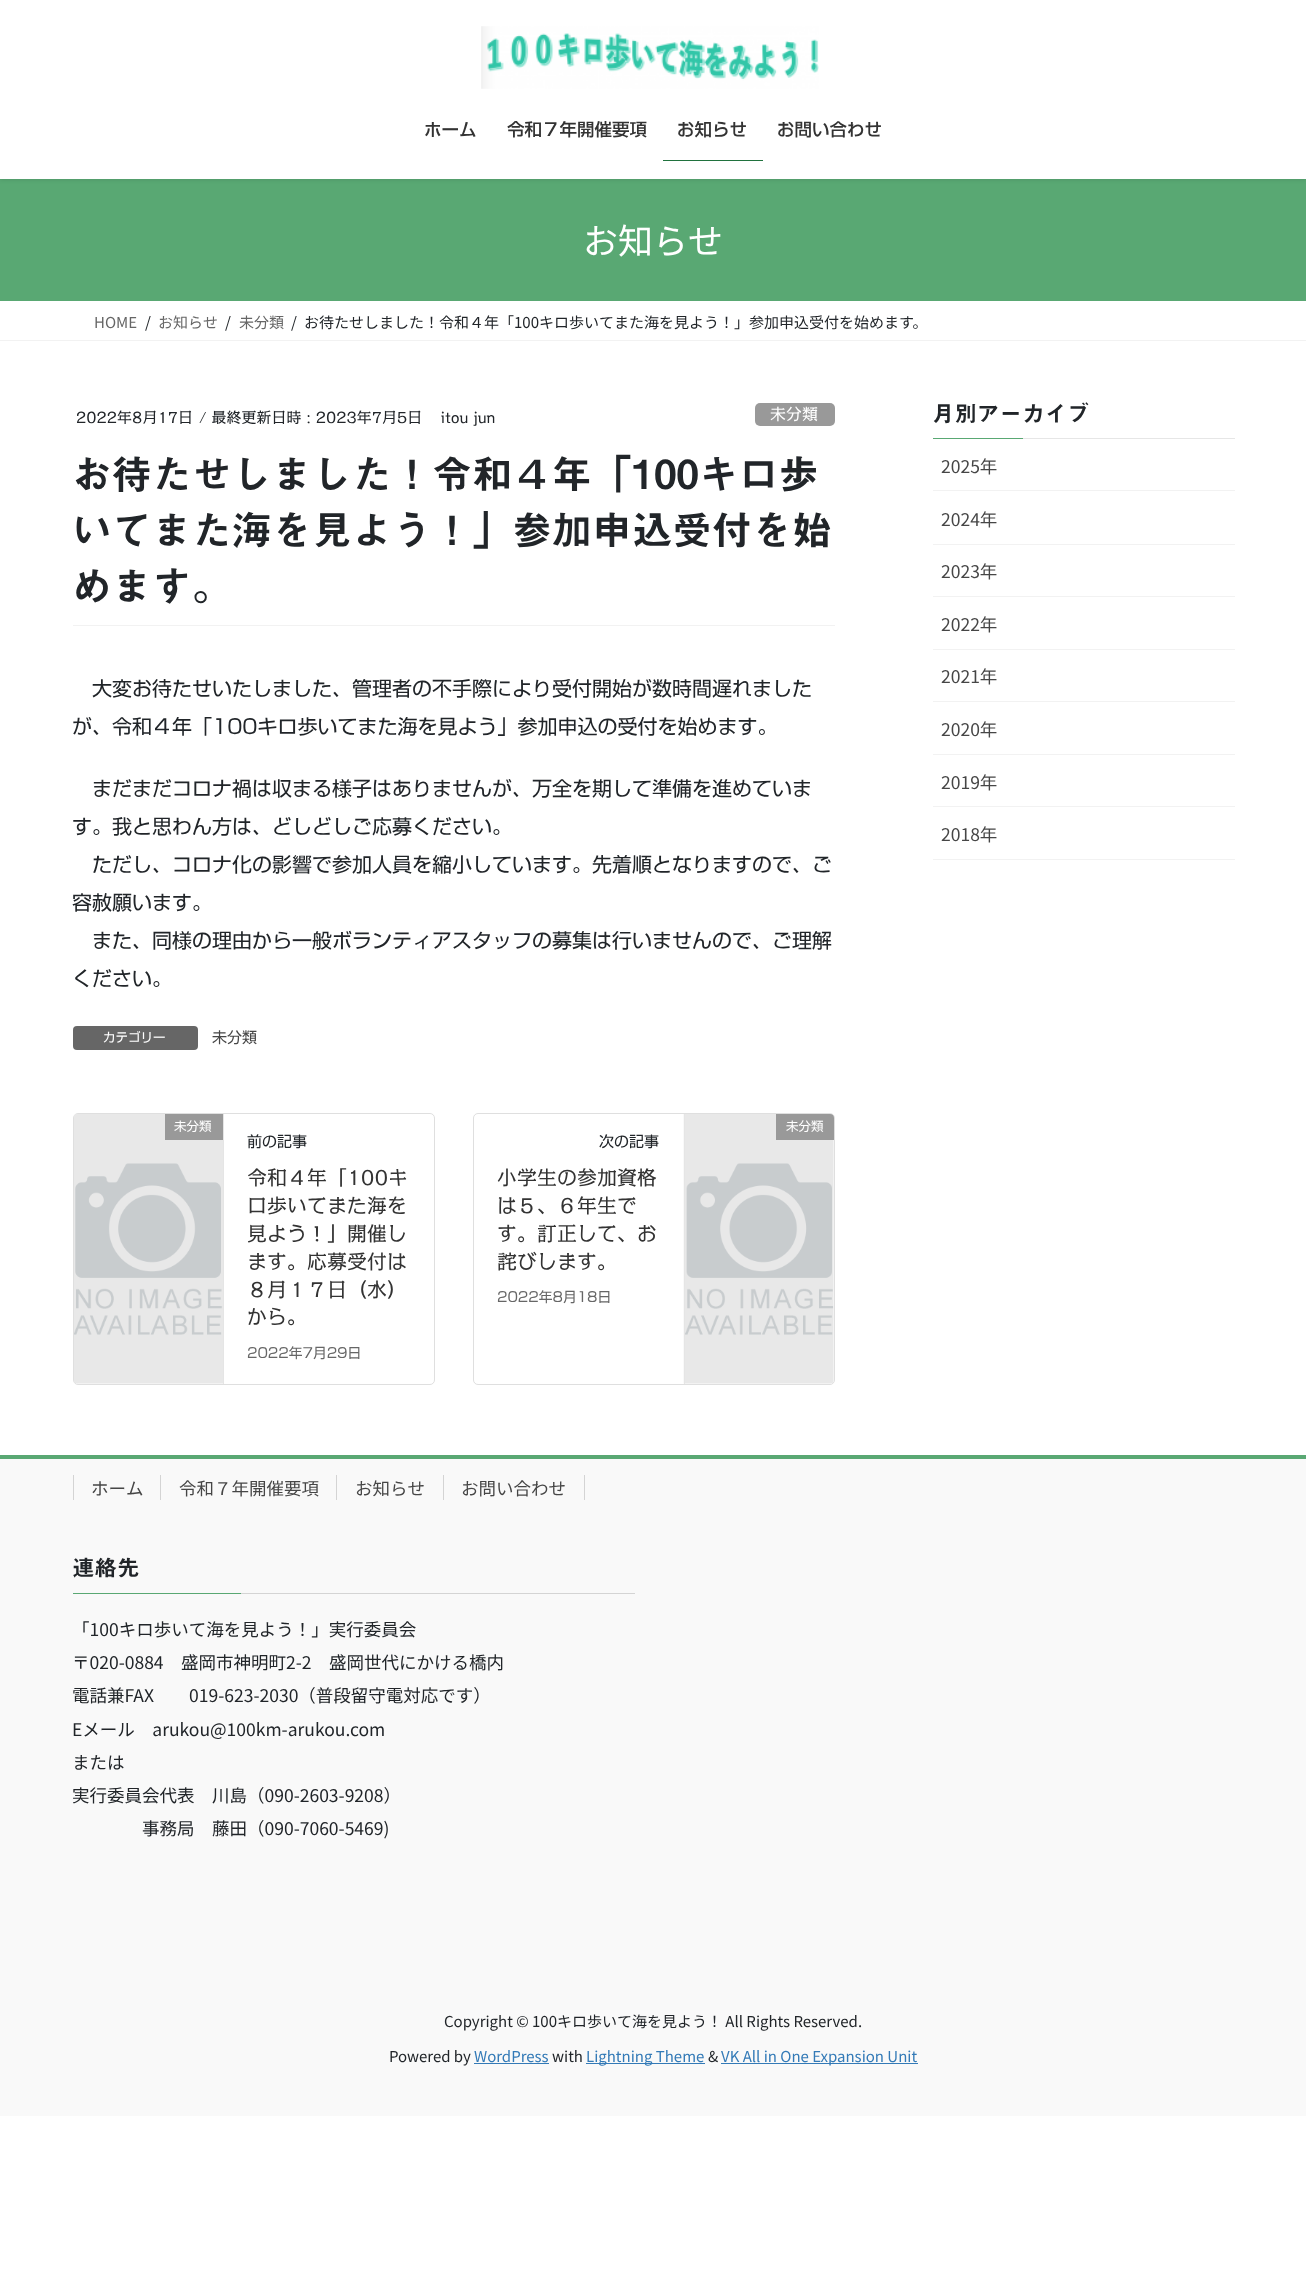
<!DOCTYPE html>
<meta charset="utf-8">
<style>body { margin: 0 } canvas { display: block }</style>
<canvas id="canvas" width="1306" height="2272"></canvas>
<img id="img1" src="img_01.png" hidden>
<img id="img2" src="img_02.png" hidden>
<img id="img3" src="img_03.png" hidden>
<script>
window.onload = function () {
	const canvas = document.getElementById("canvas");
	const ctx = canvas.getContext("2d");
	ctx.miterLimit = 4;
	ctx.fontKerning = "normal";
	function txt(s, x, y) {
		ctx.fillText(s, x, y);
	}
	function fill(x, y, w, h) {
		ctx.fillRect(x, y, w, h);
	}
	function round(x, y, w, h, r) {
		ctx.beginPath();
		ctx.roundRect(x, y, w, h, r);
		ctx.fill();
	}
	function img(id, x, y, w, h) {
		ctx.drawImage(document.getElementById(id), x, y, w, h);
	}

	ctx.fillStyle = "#FFFFFF";
	fill(0, 0, 1306, 2272);
	ctx.fillStyle = "#59A873";
	fill(0, 179, 1306, 122);
	ctx.fillStyle = "rgba(0, 0, 0, 0.1)";
	ctx.filter = "blur(2px)";
	ctx.beginPath();
	ctx.rect(0, 1, 1306, 179);
	ctx.fill();
	ctx.filter = "none";
	ctx.fillStyle = "#FFFFFF";
	fill(0, 0, 1306, 179);
	img("img1", 481, 26, 338, 63);
	ctx.fillStyle = "#20723E";
	fill(663, 160, 100, 1);
	ctx.fillStyle = "#F2F2F2";
	fill(0, 340, 1306, 1);
	fill(73, 625, 762, 1);
	ctx.fillStyle = "#999999";
	round(755, 403, 80, 23, 5);
	ctx.fillStyle = "#666666";
	round(73, 1026, 125, 24, 4);
	ctx.beginPath();
	ctx.roundRect(73.5, 1113.5, 361, 271, 4.5);
	ctx.strokeStyle = "#DFDFDF";
	ctx.stroke();
	img("img2", 74, 1114, 149, 270);
	ctx.fillStyle = "#E5E5E5";
	fill(223, 1114, 1, 270);
	ctx.fillStyle = "#999999";
	fill(165, 1114, 58, 26);
	ctx.beginPath();
	ctx.roundRect(473.5, 1113.5, 361, 271, 4.5);
	ctx.stroke();
	img("img3", 683, 1114, 151, 270);
	ctx.fillStyle = "#E5E5E5";
	fill(684, 1114, 1, 270);
	ctx.fillStyle = "#999999";
	ctx.beginPath();
	ctx.roundRect(776, 1114, 58, 26, [0, 4, 0, 0]);
	ctx.fill();
	ctx.fillStyle = "#E6E6E6";
	fill(1023, 438, 212, 1);
	ctx.fillStyle = "#59A873";
	fill(933, 438, 90, 1);
	ctx.fillStyle = "#F2F2F2";
	fill(933, 490, 302, 1);
	fill(933, 544, 302, 1);
	fill(933, 596, 302, 1);
	fill(933, 649, 302, 1);
	fill(933, 701, 302, 1);
	fill(933, 754, 302, 1);
	fill(933, 806, 302, 1);
	fill(933, 859, 302, 1);
	ctx.fillStyle = "#F9F9F9";
	fill(0, 1459, 1306, 657);
	ctx.fillStyle = "#59A873";
	fill(0, 1455, 1306, 4);
	ctx.fillStyle = "#D4D4D4";
	fill(73, 1475, 1, 25);
	fill(160, 1475, 1, 25);
	fill(336, 1475, 1, 25);
	fill(584, 1475, 1, 25);
	fill(443, 1475, 1, 25);
	fill(241, 1593, 394, 1);
	ctx.fillStyle = "#59A873";
	fill(73, 1593, 168, 1);
	ctx.fillStyle = "#337AB7";
	fill(474, 2063, 75, 1);
	fill(586, 2063, 119, 1);
	fill(721, 2063, 197, 1);
	ctx.font = "500 17.5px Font";
	ctx.fillStyle = "#333333";
	txt("ホーム", 424, 136);
	txt("令和７年開催要項", 507, 136);
	txt("お知らせ", 677, 136);
	txt("お問い合わせ", 777, 136);
	ctx.font = "35px Noto Sans JP";
	ctx.fillStyle = "#FFFFFF";
	txt("お知らせ", 583, 254);
	ctx.font = "15px Noto Sans JP";
	ctx.fillStyle = "#666666";
	txt("HOME", 94, 328);
	ctx.fillStyle = "#212529";
	txt("/", 145, 328);
	ctx.fillStyle = "#666666";
	txt("お知らせ", 158, 328);
	ctx.fillStyle = "#212529";
	txt("/", 225, 328);
	ctx.fillStyle = "#666666";
	txt("未分類", 239, 328);
	ctx.fillStyle = "#212529";
	txt("/", 291, 328);
	txt("お待たせしました！令和４年「100キロ歩いてまた海を見よう！」参加申込受付を始めます。", 304, 328);
	ctx.font = "15px 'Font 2'";
	txt("2022年8月17日", 76, 423);
	txt("/ 最終更新日時 : 2023年7月5日", 199, 423);
	txt("itou jun", 441, 423);
	ctx.font = "16px 'Font 2'";
	ctx.fillStyle = "#FFFFFF";
	txt("未分類", 770, 420);
	ctx.font = "600 40px Font";
	ctx.fillStyle = "#212529";
	txt("お待たせしました！令和４年「100キロ歩", 72, 489);
	txt("いてまた海を見よう！」参加申込受付を始", 72, 545);
	txt("めます。", 72, 601);
	ctx.font = "20px Font";
	txt("大変お待たせいたしました、管理者の不手際により受付開始が数時間遅れました", 92, 696);
	txt("が、令和４年「100キロ歩いてまた海を見よう」参加申込の受付を始めます。", 72, 734);
	txt("まだまだコロナ禍は収まる様子はありませんが、万全を期して準備を進めていま", 92, 796);
	txt("す。我と思わん方は、どしどしご応募ください。", 72, 834);
	txt("ただし、コロナ化の影響で参加人員を縮小しています。先着順となりますので、ご", 92, 872);
	txt("容赦願います。", 72, 910);
	txt("また、同様の理由から一般ボランティアスタッフの募集は行いませんので、ご理解", 92, 948);
	txt("ください。", 72, 986);
	ctx.font = "12.5px Font";
	ctx.fillStyle = "#FFFFFF";
	txt("カテゴリー", 103, 1042);
	ctx.font = "15px Font";
	ctx.fillStyle = "#464646";
	txt("未分類", 212, 1043);
	ctx.font = "12.5px Font";
	ctx.fillStyle = "#FFFFFF";
	txt("未分類", 174, 1131);
	ctx.font = "15px Font";
	ctx.fillStyle = "#212529";
	txt("前の記事", 247, 1147);
	ctx.font = "20px 'Font 2'";
	ctx.fillStyle = "#333333";
	txt("令和４年「100キ", 247, 1185);
	txt("ロ歩いてまた海を", 247, 1213);
	txt("見よう！」開催し", 247, 1241);
	txt("ます。応募受付は", 247, 1269);
	txt("８月１７日（水）", 247, 1297);
	txt("から。", 247, 1324);
	ctx.font = "13.75px Font";
	ctx.fillStyle = "#666666";
	txt("2022年7月29日", 247, 1358);
	ctx.font = "12.5px Font";
	ctx.fillStyle = "#FFFFFF";
	txt("未分類", 786, 1131);
	ctx.font = "15px Font";
	ctx.fillStyle = "#212529";
	txt("次の記事", 599, 1147);
	ctx.font = "20px 'Font 2'";
	ctx.fillStyle = "#333333";
	txt("小学生の参加資格", 497, 1185);
	txt("は５、６年生で", 497, 1213);
	txt("す。訂正して、お", 497, 1241);
	txt("詫びします。", 497, 1269);
	ctx.font = "13.75px Font";
	ctx.fillStyle = "#666666";
	txt("2022年8月18日", 497, 1302);
	ctx.font = "600 22.5px Font";
	ctx.fillStyle = "#212529";
	txt("月別アーカイブ", 932, 422);
	ctx.font = "17.5px Noto Sans JP";
	ctx.fillStyle = "#464646";
	txt("2025年", 941, 473);
	txt("2024年", 941, 526);
	txt("2023年", 941, 578);
	txt("2022年", 941, 631);
	txt("2021年", 941, 683);
	txt("2020年", 941, 736);
	txt("2019年", 941, 789);
	txt("2018年", 941, 841);
	txt("ホーム", 91, 1495);
	txt("令和７年開催要項", 179, 1495);
	txt("お知らせ", 355, 1495);
	txt("お問い合わせ", 461, 1495);
	ctx.font = "600 22.5px Font";
	ctx.fillStyle = "#212529";
	txt("連絡先", 72, 1576);
	ctx.font = "17.5px Noto Sans JP";
	txt("「100キロ歩いて海を見よう！」実行委員会", 72, 1636);
	txt("〒020-0884　盛岡市神明町2-2　盛岡世代にかける橋内", 72, 1669);
	txt("電話兼FAX　　019-623-2030（普段留守電対応です）", 72, 1702);
	txt("Eメール　arukou@100km-arukou.com", 72, 1736);
	txt("または", 72, 1769);
	txt("実行委員会代表　川島（090-2603-9208）", 72, 1802);
	txt("事務局　藤田（090-7060-5469)", 142, 1835);
	ctx.font = "15px Noto Sans JP";
	txt("Copyright © 100キロ歩いて海を見よう！ All Rights Reserved.", 444, 2027);
	txt("Powered by", 389, 2062);
	ctx.fillStyle = "#337AB7";
	txt("WordPress", 474, 2062);
	ctx.fillStyle = "#212529";
	txt("with", 552, 2062);
	ctx.fillStyle = "#337AB7";
	txt("Lightning Theme", 586, 2062);
	ctx.fillStyle = "#212529";
	txt("&", 708, 2062);
	ctx.fillStyle = "#337AB7";
	txt("VK All in One Expansion Unit", 721, 2062);
};
</script>
